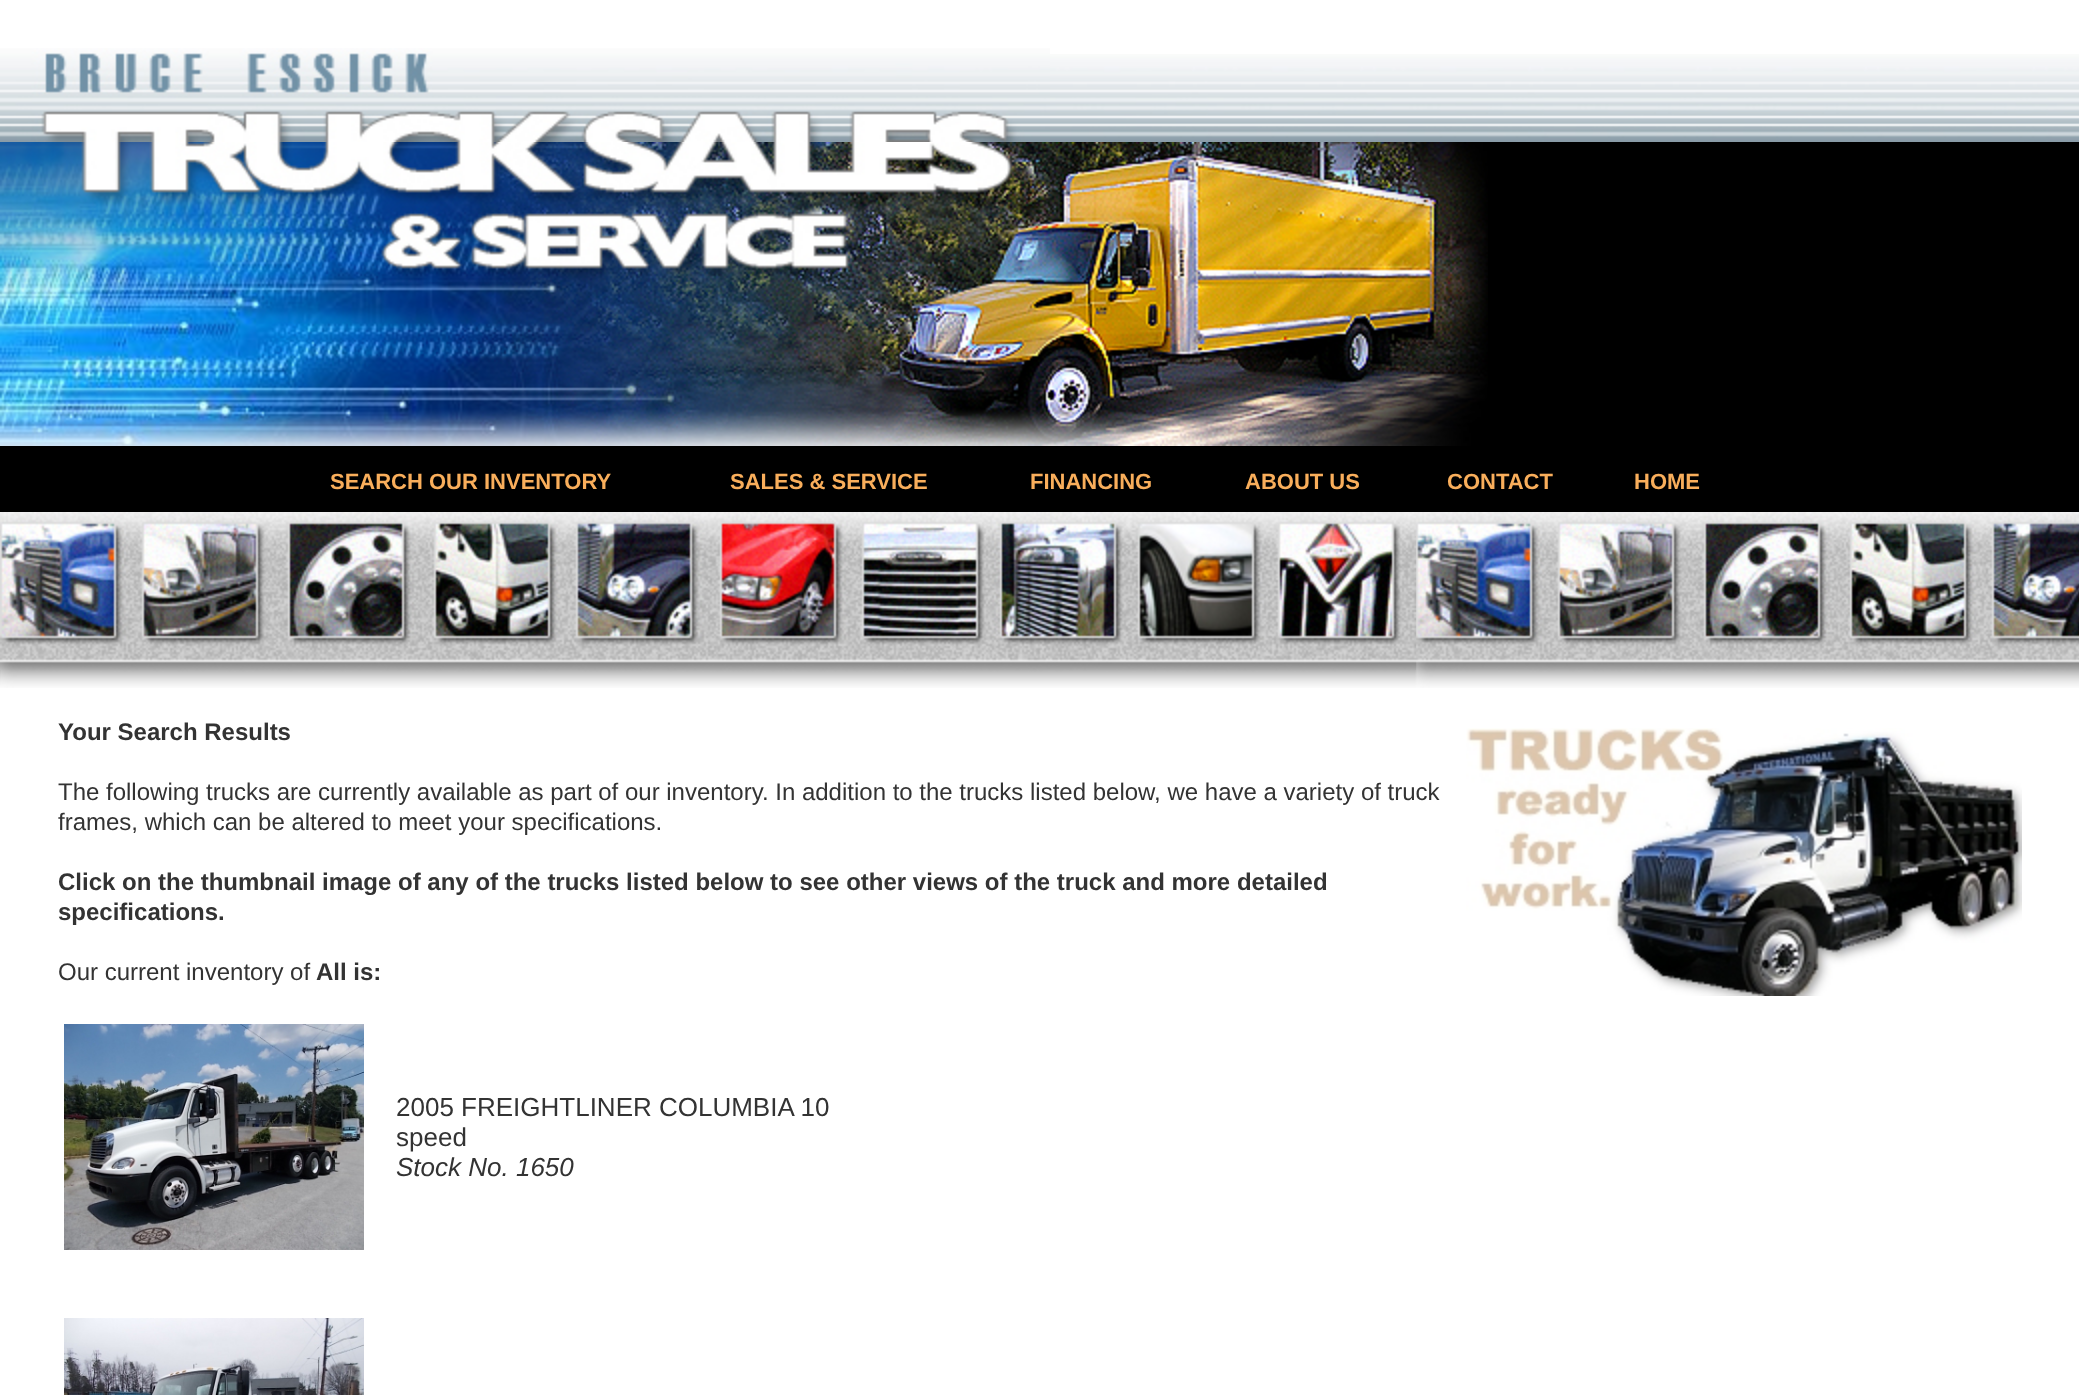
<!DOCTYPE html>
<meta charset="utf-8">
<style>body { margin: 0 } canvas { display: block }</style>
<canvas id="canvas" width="2079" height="1395"></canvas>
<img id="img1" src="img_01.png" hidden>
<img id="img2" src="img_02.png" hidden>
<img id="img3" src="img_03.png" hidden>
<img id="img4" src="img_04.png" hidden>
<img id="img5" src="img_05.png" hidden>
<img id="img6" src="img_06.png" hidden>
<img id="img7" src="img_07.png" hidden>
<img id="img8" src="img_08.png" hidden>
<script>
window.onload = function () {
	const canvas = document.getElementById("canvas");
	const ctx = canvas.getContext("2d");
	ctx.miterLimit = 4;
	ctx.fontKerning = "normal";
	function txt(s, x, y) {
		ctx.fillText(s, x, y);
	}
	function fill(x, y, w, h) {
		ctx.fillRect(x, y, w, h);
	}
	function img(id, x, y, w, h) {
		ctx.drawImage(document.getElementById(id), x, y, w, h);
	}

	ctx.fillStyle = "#FFFFFF";
	fill(0, 0, 2079, 1395);
	img("img1", 1050, 54, 1029, 88);
	img("img2", 0, 48, 1050, 94);
	ctx.fillStyle = "#000000";
	fill(1488, 142, 591, 304);
	img("img3", 0, 142, 1488, 304);
	fill(0, 446, 2079, 66);
	img("img4", 0, 512, 2079, 176);
	img("img5", 0, 536, 1416, 134);
	img("img6", 64, 1024, 300, 226);
	img("img7", 64, 1318, 300, 77);
	img("img8", 1466, 728, 556, 268);
	ctx.font = "bold 22px Liberation Sans";
	ctx.fillStyle = "#F9AE5B";
	txt("SEARCH OUR INVENTORY", 330, 489);
	txt("SALES & SERVICE", 730, 489);
	txt("FINANCING", 1030, 489);
	txt("ABOUT US", 1245, 489);
	txt("CONTACT", 1447, 489);
	txt("HOME", 1634, 489);
	ctx.font = "bold 24px Liberation Sans";
	ctx.fillStyle = "#333333";
	txt("Your Search Results", 58, 740);
	ctx.font = "24px Liberation Sans";
	txt("The following trucks are currently available as part of our inventory. In addition to the trucks listed below, we have a variety of truck", 58, 800);
	txt("frames, which can be altered to meet your specifications.", 58, 830);
	ctx.font = "bold 24px Liberation Sans";
	txt("Click on the thumbnail image of any of the trucks listed below to see other views of the truck and more detailed", 58, 890);
	txt("specifications.", 58, 920);
	ctx.font = "24px Liberation Sans";
	txt("Our current inventory of", 58, 980);
	ctx.font = "bold 24px Liberation Sans";
	txt("All is:", 316, 980);
	ctx.font = "26px Liberation Sans";
	txt("2005 FREIGHTLINER COLUMBIA 10", 396, 1116);
	txt("speed", 396, 1146);
	ctx.font = "italic 26px Liberation Sans";
	txt("Stock No. 1650", 396, 1176);
};
</script>
